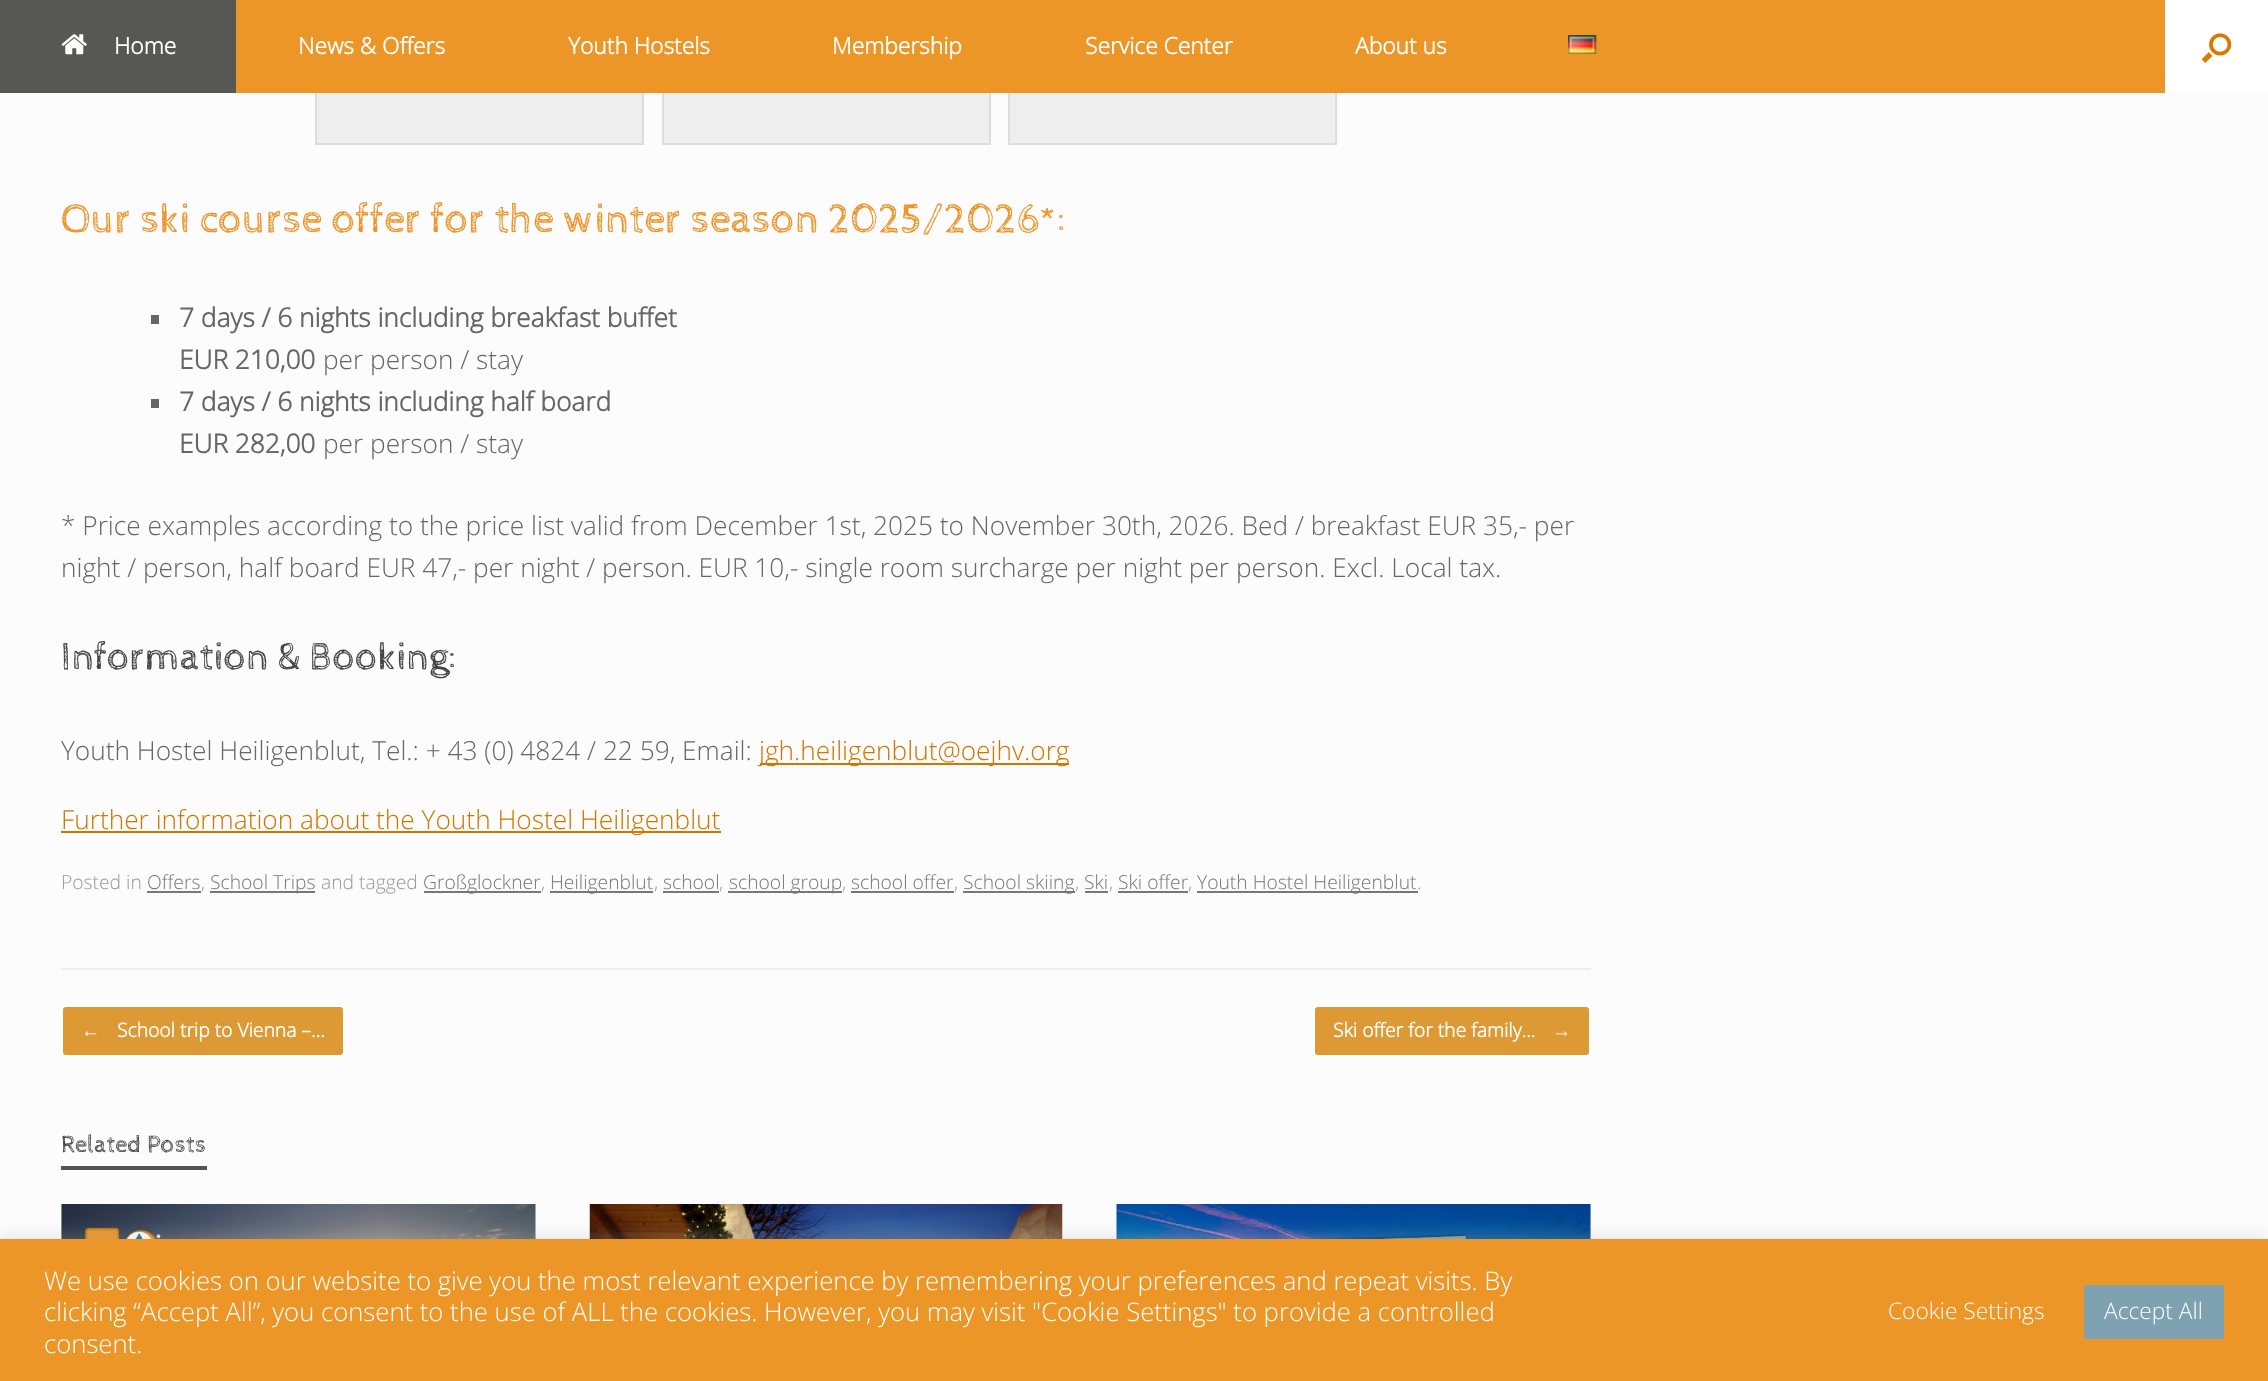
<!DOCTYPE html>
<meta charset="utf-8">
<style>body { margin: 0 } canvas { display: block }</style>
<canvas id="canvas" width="2268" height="1381"></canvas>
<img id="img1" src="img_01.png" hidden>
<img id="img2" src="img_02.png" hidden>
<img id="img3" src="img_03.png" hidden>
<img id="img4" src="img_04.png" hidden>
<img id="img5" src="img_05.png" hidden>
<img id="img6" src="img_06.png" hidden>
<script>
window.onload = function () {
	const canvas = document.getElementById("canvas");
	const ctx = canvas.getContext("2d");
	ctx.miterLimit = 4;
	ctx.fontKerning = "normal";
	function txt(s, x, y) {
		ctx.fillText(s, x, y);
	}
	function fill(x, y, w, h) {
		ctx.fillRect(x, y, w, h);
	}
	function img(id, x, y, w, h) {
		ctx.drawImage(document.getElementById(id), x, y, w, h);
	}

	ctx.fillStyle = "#FCFCFC";
	fill(0, 0, 2268, 1381);
	ctx.fillStyle = "#EEEEEE";
	fill(317, 93, 325, 50);
	ctx.strokeStyle = "#DDDDDD";
	ctx.lineWidth = 2;
	ctx.strokeRect(316, -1, 327, 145);
	fill(664, 93, 325, 50);
	ctx.strokeRect(663, -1, 327, 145);
	fill(1010, 93, 325, 50);
	ctx.strokeRect(1009, -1, 327, 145);
	ctx.fillStyle = "#EC9628";
	fill(236, 0, 1929, 93);
	ctx.fillStyle = "#575756";
	fill(0, 0, 236, 93);
	img("img1", 61, 34, 26, 21);
	img("img2", 1568, 35, 29, 19);
	ctx.fillStyle = "#FFFFFF";
	fill(2165, 0, 103, 93);
	img("img3", 2201, 33, 31, 30);
	ctx.fillStyle = "#EEEEEE";
	fill(61, 968, 1530, 2);
	ctx.fillStyle = "#666666";
	fill(151, 315, 8, 9);
	fill(151, 399, 8, 9);
	ctx.fillStyle = "#D17600";
	fill(760, 763, 309, 2);
	fill(61, 831, 660, 2);
	ctx.fillStyle = "#777777";
	fill(147, 891, 54, 2);
	fill(210, 891, 105, 2);
	fill(424, 891, 117, 2);
	fill(550, 891, 103, 2);
	fill(663, 891, 56, 2);
	fill(728, 891, 114, 2);
	fill(851, 891, 103, 2);
	fill(963, 891, 112, 2);
	fill(1085, 891, 23, 2);
	fill(1118, 891, 70, 2);
	fill(1197, 891, 221, 2);
	ctx.fillStyle = "#DD9933";
	ctx.beginPath();
	ctx.roundRect(62, 1006, 282, 50, 4);
	ctx.fill();
	ctx.strokeStyle = "#FFFFFF";
	ctx.stroke();
	ctx.beginPath();
	ctx.roundRect(1314, 1006, 276, 50, 4);
	ctx.fill();
	ctx.stroke();
	ctx.fillStyle = "#555555";
	fill(61, 1166, 146, 4);
	img("img4", 61, 1204, 475, 35);
	img("img5", 589, 1204, 474, 35);
	img("img6", 1116, 1204, 475, 35);
	ctx.fillStyle = "rgba(172, 171, 171, 0.3)";
	ctx.filter = "blur(9px)";
	ctx.beginPath();
	ctx.rect(0, 1237, 2268, 144);
	ctx.fill();
	ctx.filter = "none";
	ctx.fillStyle = "#EC9628";
	fill(0, 1239, 2268, 142);
	ctx.fillStyle = "#7FA2B3";
	fill(2084, 1285, 140, 54);
	ctx.font = "bold 22.75px Open Sans";
	ctx.fillStyle = "#FFFFFF";
	txt("Home", 114, 54);
	txt("News & Offers", 298, 54);
	txt("Youth Hostels", 568, 54);
	txt("Membership", 832, 54);
	txt("Service Center", 1085, 54);
	txt("About us", 1355, 54);
	ctx.font = "42px Cabin Sketch";
	ctx.fillStyle = "#ED942A";
	txt("Our ski course offer for the winter season 2025/2026*:", 61, 232);
	ctx.font = "bold 26.25px Open Sans";
	ctx.fillStyle = "#666666";
	txt("7 days / 6 nights including breakfast buffet", 179, 327);
	txt("EUR 210,00", 179, 369);
	ctx.font = "300 26.25px Open Sans";
	txt("per person / stay", 323, 369);
	ctx.font = "bold 26.25px Open Sans";
	txt("7 days / 6 nights including half board", 179, 411);
	txt("EUR 282,00", 179, 453);
	ctx.font = "300 26.25px Open Sans";
	txt("per person / stay", 323, 453);
	txt("* Price examples according to the price list valid from December 1st, 2025 to November 30th, 2026. Bed / breakfast EUR 35,- per", 61, 535);
	txt("night / person, half board EUR 47,- per night / person. EUR 10,- single room surcharge per night per person. Excl. Local tax.", 61, 577);
	ctx.font = "39.4px Cabin Sketch";
	ctx.fillStyle = "#444444";
	txt("Information & Booking:", 61, 669);
	ctx.font = "300 26.25px Open Sans";
	ctx.fillStyle = "#666666";
	txt("Youth Hostel Heiligenblut, Tel.: + 43 (0) 4824 / 22 59, Email:", 61, 760);
	ctx.fillStyle = "#D17600";
	txt("jgh.heiligenblut@oejhv.org", 759, 760);
	txt("Further information about the Youth Hostel Heiligenblut", 61, 829);
	ctx.font = "300 19.3px Open Sans";
	ctx.fillStyle = "#999999";
	txt("Posted in", 61, 889);
	ctx.fillStyle = "#777777";
	txt("Offers", 147, 889);
	ctx.fillStyle = "#999999";
	txt(",", 201, 889);
	ctx.fillStyle = "#777777";
	txt("School Trips", 210, 889);
	ctx.fillStyle = "#999999";
	txt("and tagged", 321, 889);
	ctx.fillStyle = "#777777";
	txt("Großglockner", 423, 889);
	ctx.fillStyle = "#999999";
	txt(",", 541, 889);
	ctx.fillStyle = "#777777";
	txt("Heiligenblut", 550, 889);
	ctx.fillStyle = "#999999";
	txt(",", 654, 889);
	ctx.fillStyle = "#777777";
	txt("school", 663, 889);
	ctx.fillStyle = "#999999";
	txt(",", 719, 889);
	ctx.fillStyle = "#777777";
	txt("school group", 729, 889);
	ctx.fillStyle = "#999999";
	txt(",", 842, 889);
	ctx.fillStyle = "#777777";
	txt("school offer", 851, 889);
	ctx.fillStyle = "#999999";
	txt(",", 954, 889);
	ctx.fillStyle = "#777777";
	txt("School skiing", 963, 889);
	ctx.fillStyle = "#999999";
	txt(",", 1075, 889);
	ctx.fillStyle = "#777777";
	txt("Ski", 1084, 889);
	ctx.fillStyle = "#999999";
	txt(",", 1109, 889);
	ctx.fillStyle = "#777777";
	txt("Ski offer", 1118, 889);
	ctx.fillStyle = "#999999";
	txt(",", 1188, 889);
	ctx.fillStyle = "#777777";
	txt("Youth Hostel Heiligenblut", 1197, 889);
	ctx.fillStyle = "#999999";
	txt(".", 1417, 889);
	ctx.font = "bold 19.25px Liberation Serif";
	ctx.fillStyle = "#FFFFFF";
	txt("←", 81, 1037);
	ctx.font = "bold 19.25px Open Sans";
	txt("School trip to Vienna –…", 117, 1037);
	txt("Ski offer for the family…", 1333, 1037);
	ctx.font = "bold 19.25px Liberation Serif";
	txt("→", 1552, 1037);
	ctx.font = "24.5px Cabin Sketch";
	ctx.fillStyle = "#444444";
	txt("Related Posts", 61, 1152);
	ctx.font = "300 25.67px Open Sans";
	ctx.fillStyle = "#FFFFFF";
	txt("We use cookies on our website to give you the most relevant experience by remembering your preferences and repeat visits. By", 44, 1290);
	txt("clicking “Accept All”, you consent to the use of ALL the cookies. However, you may visit \"Cookie Settings\" to provide a controlled", 44, 1321);
	txt("consent.", 44, 1353);
	ctx.font = "300 22.75px Open Sans";
	txt("Cookie Settings", 1888, 1319);
	txt("Accept All", 2104, 1319);
};
</script>
